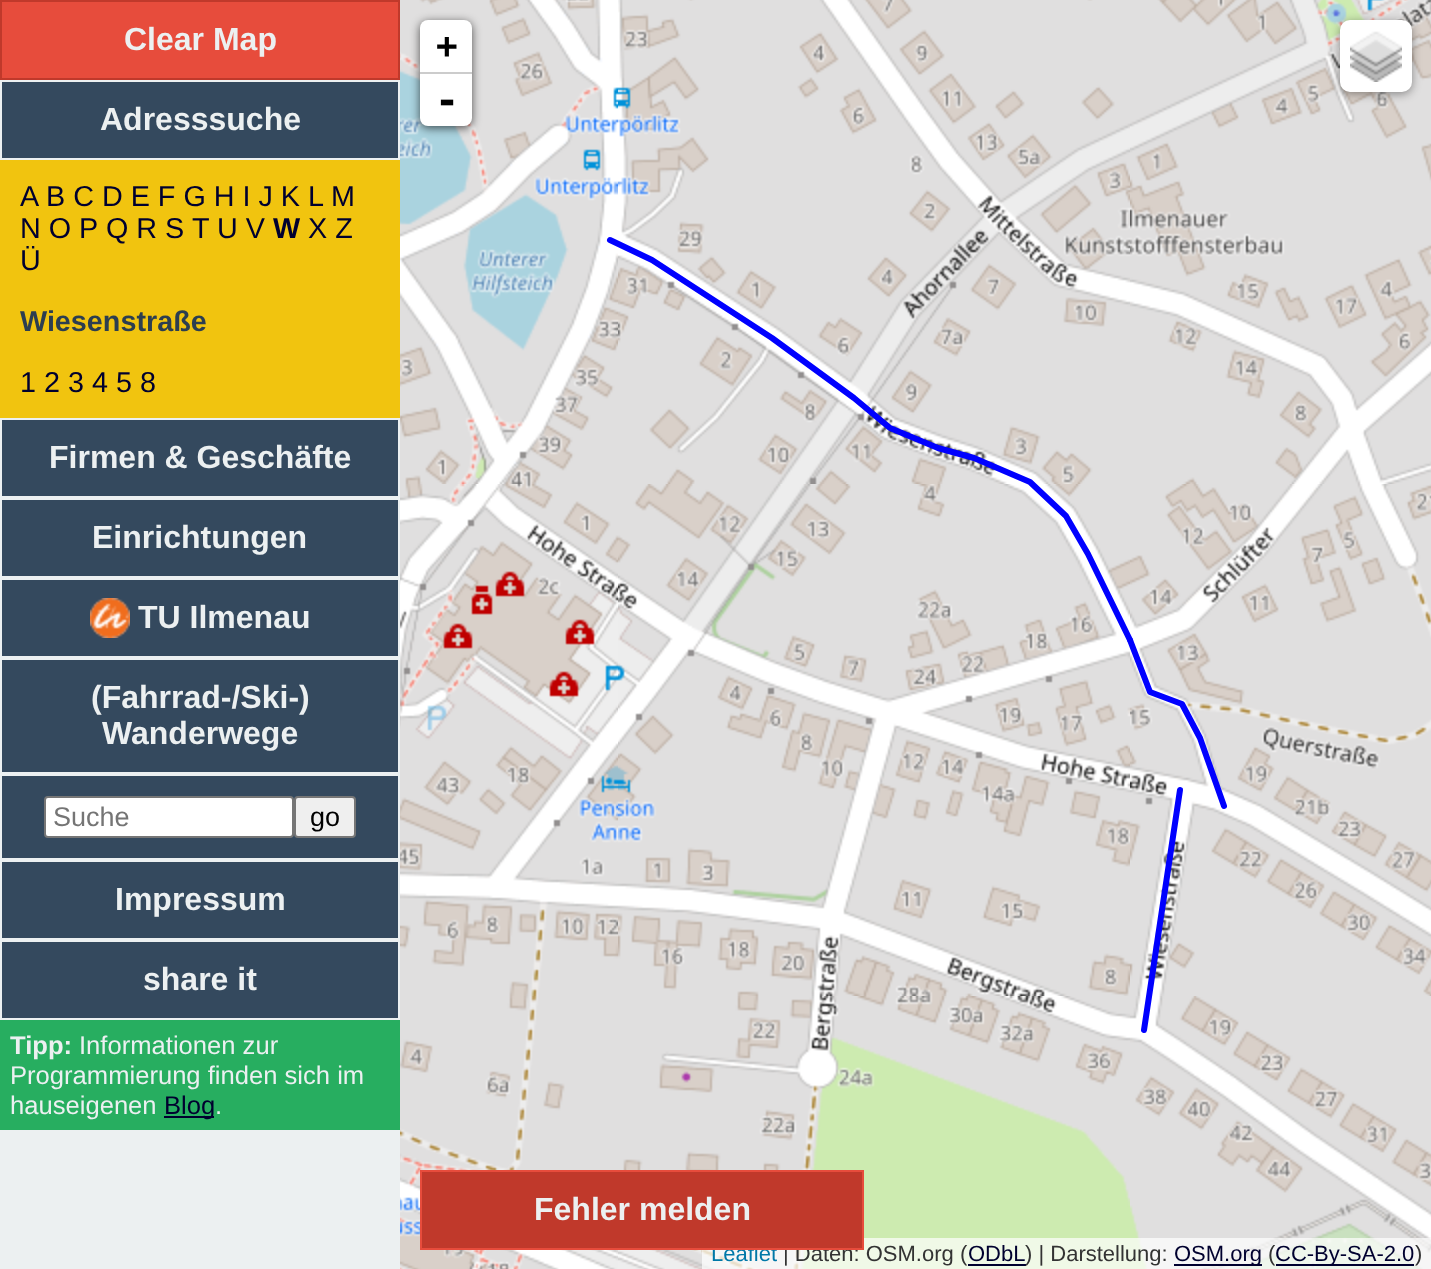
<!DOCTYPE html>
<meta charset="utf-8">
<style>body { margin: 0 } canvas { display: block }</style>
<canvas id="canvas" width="1431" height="1269"></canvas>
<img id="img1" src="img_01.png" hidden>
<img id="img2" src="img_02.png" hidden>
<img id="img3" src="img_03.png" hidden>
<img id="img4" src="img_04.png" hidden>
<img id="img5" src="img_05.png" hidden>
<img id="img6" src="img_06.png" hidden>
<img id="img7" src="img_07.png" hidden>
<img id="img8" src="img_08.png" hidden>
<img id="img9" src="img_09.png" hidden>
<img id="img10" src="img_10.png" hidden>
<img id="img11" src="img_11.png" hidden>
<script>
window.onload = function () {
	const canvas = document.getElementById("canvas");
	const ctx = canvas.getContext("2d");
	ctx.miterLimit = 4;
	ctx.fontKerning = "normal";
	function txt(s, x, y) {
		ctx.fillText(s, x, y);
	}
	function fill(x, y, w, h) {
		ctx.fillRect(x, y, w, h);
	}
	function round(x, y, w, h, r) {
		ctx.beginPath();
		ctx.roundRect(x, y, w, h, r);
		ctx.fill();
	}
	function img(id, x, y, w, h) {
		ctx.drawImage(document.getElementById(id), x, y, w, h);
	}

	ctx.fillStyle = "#ECF0F1";
	fill(0, 0, 1431, 1269);
	ctx.fillStyle = "#E74C3C";
	ctx.beginPath();
	ctx.rect(1, 1, 398, 78);
	ctx.fill();
	ctx.strokeStyle = "#C0392B";
	ctx.lineWidth = 2;
	ctx.stroke();
	ctx.fillStyle = "#34495E";
	fill(2, 82, 396, 76);
	ctx.fillStyle = "#F1C40F";
	fill(0, 160, 400, 258);
	ctx.fillStyle = "#34495E";
	fill(2, 420, 396, 76);
	fill(2, 500, 396, 76);
	fill(2, 580, 396, 76);
	img("img1", 90, 598, 40, 40);
	fill(2, 660, 396, 112);
	fill(2, 776, 396, 82);
	ctx.fillStyle = "#FFFFFF";
	ctx.beginPath();
	ctx.roundRect(45, 797, 248, 40, 3);
	ctx.fill();
	ctx.strokeStyle = "#767676";
	ctx.stroke();
	ctx.fillStyle = "#EFEFEF";
	ctx.beginPath();
	ctx.roundRect(295, 797, 60, 40, 3);
	ctx.fill();
	ctx.stroke();
	ctx.fillStyle = "#34495E";
	fill(2, 862, 396, 76);
	fill(2, 942, 396, 76);
	ctx.fillStyle = "#27AE60";
	fill(0, 1020, 400, 110);
	ctx.fillStyle = "#00002F";
	fill(164, 1116, 50, 2);
	img("img2", 400, 0, 218, 484);
	img("img3", 618, 0, 512, 484);
	img("img4", 1130, 0, 301, 484);
	img("img5", 400, 484, 218, 512);
	img("img6", 618, 484, 512, 512);
	img("img7", 1130, 484, 301, 512);
	img("img8", 400, 996, 218, 273);
	img("img9", 618, 996, 512, 273);
	img("img10", 1130, 996, 301, 273);
	ctx.beginPath();
	ctx.moveTo(1130, 640);
	ctx.lineTo(1088, 554);
	ctx.lineTo(1066, 516);
	ctx.lineTo(1030, 482);
	ctx.lineTo(974, 458);
	ctx.lineTo(938, 448);
	ctx.lineTo(890, 428);
	ctx.lineTo(854, 398);
	ctx.lineTo(772, 338);
	ctx.lineTo(652, 260);
	ctx.lineTo(610, 240);
	ctx.strokeStyle = "#0000FF";
	ctx.lineWidth = 6;
	ctx.lineCap = "round";
	ctx.lineJoin = "round";
	ctx.stroke();
	ctx.beginPath();
	ctx.moveTo(1144, 1030);
	ctx.lineTo(1180, 790);
	ctx.stroke();
	ctx.beginPath();
	ctx.moveTo(1224, 806);
	ctx.lineTo(1200, 738);
	ctx.lineTo(1182, 704);
	ctx.lineTo(1150, 692);
	ctx.lineTo(1130, 640);
	ctx.stroke();
	ctx.fillStyle = "rgba(0, 0, 0, 0.65)";
	ctx.filter = "blur(5px)";
	ctx.beginPath();
	ctx.roundRect(420, 22, 52, 106, 8);
	ctx.fill();
	ctx.filter = "none";
	ctx.fillStyle = "#FFFFFF";
	ctx.beginPath();
	ctx.roundRect(420, 20, 52, 54, [8, 8, 0, 0]);
	ctx.fill();
	ctx.fillStyle = "#CCCCCC";
	fill(420, 72, 52, 2);
	ctx.fillStyle = "#FFFFFF";
	ctx.beginPath();
	ctx.roundRect(420, 74, 52, 52, [0, 0, 8, 8]);
	ctx.fill();
	ctx.fillStyle = "rgba(0, 0, 0, 0.4)";
	ctx.filter = "blur(5px)";
	ctx.beginPath();
	ctx.roundRect(1340, 22, 72, 72, 10);
	ctx.fill();
	ctx.filter = "none";
	ctx.fillStyle = "#FFFFFF";
	round(1340, 20, 72, 72, 10);
	img("img11", 1350, 31, 52, 51);
	ctx.fillStyle = "rgba(255, 255, 255, 0.7)";
	fill(702, 1238, 729, 31);
	ctx.fillStyle = "#00002F";
	fill(968, 1264, 58, 2);
	fill(1174, 1264, 88, 2);
	fill(1276, 1264, 138, 2);
	ctx.font = "bold 32px Liberation Sans";
	ctx.fillStyle = "#ECF0F1";
	txt("Clear Map", 124, 50);
	txt("Adresssuche", 100, 130);
	ctx.font = "28.75px Liberation Sans";
	ctx.fillStyle = "#00002F";
	txt("A", 20, 206);
	txt("B C D E F G H I J K L", 46, 206);
	txt("M", 331, 206);
	txt("N O P", 20, 238);
	txt("Q R S", 106, 238);
	txt("T", 192, 238);
	txt("U V", 217, 238);
	ctx.font = "bold 28.75px Liberation Sans";
	txt("W", 273, 238);
	ctx.font = "28.75px Liberation Sans";
	txt("X Z", 308, 238);
	txt("Ü", 20, 270);
	ctx.font = "bold 28.75px Liberation Sans";
	ctx.fillStyle = "#2C3E50";
	txt("Wiesenstraße", 20, 331);
	ctx.font = "28.75px Liberation Sans";
	ctx.fillStyle = "#00002F";
	txt("1 2 3 4 5 8", 20, 392);
	ctx.font = "bold 32px Liberation Sans";
	ctx.fillStyle = "#ECF0F1";
	txt("Firmen & Geschäfte", 49, 468);
	txt("Einrichtungen", 92, 548);
	txt("TU Ilmenau", 138, 628);
	txt("(Fahrrad-/Ski-)", 91, 708);
	txt("Wanderwege", 102, 744);
	ctx.font = "27px Liberation Sans";
	ctx.fillStyle = "#757575";
	txt("Suche", 53, 826);
	ctx.fillStyle = "#000000";
	txt("go", 310, 826);
	ctx.font = "bold 32px Liberation Sans";
	ctx.fillStyle = "#ECF0F1";
	txt("Impressum", 115, 910);
	txt("share it", 143, 990);
	ctx.font = "bold 25.6px Liberation Sans";
	txt("Tipp:", 10, 1054);
	ctx.font = "25.6px Liberation Sans";
	txt("Informationen zur", 79, 1054);
	txt("Programmierung finden sich im", 10, 1084);
	txt("hauseigenen", 10, 1114);
	ctx.fillStyle = "#00002F";
	txt("Blog", 164, 1114);
	ctx.fillStyle = "#ECF0F1";
	txt(".", 215, 1114);
	ctx.font = "bold 36px DejaVu Sans Mono";
	ctx.fillStyle = "#000000";
	txt("+", 436, 58);
	ctx.font = "bold 40px DejaVu Sans Mono";
	txt("-", 435, 114);
	ctx.font = "22px Liberation Sans";
	ctx.fillStyle = "#0078A8";
	txt("Leaflet", 711, 1261);
	ctx.fillStyle = "#333333";
	txt("| Daten: OSM.org (", 783, 1261);
	ctx.fillStyle = "#00002F";
	txt("ODbL", 968, 1261);
	ctx.fillStyle = "#333333";
	txt(") | Darstellung:", 1025, 1261);
	ctx.fillStyle = "#00002F";
	txt("OSM.org", 1174, 1261);
	ctx.fillStyle = "#333333";
	txt("(", 1268, 1261);
	ctx.fillStyle = "#00002F";
	txt("CC-By-SA-2.0", 1275, 1261);
	ctx.fillStyle = "#333333";
	txt(")", 1415, 1261);
	ctx.fillStyle = "#C0392B";
	ctx.beginPath();
	ctx.rect(421, 1171, 442, 78);
	ctx.fill();
	ctx.strokeStyle = "#E74C3C";
	ctx.lineWidth = 2;
	ctx.lineJoin = "miter";
	ctx.stroke();
	ctx.font = "bold 32px Liberation Sans";
	ctx.fillStyle = "#ECF0F1";
	txt("Fehler melden", 534, 1220);
};
</script>
